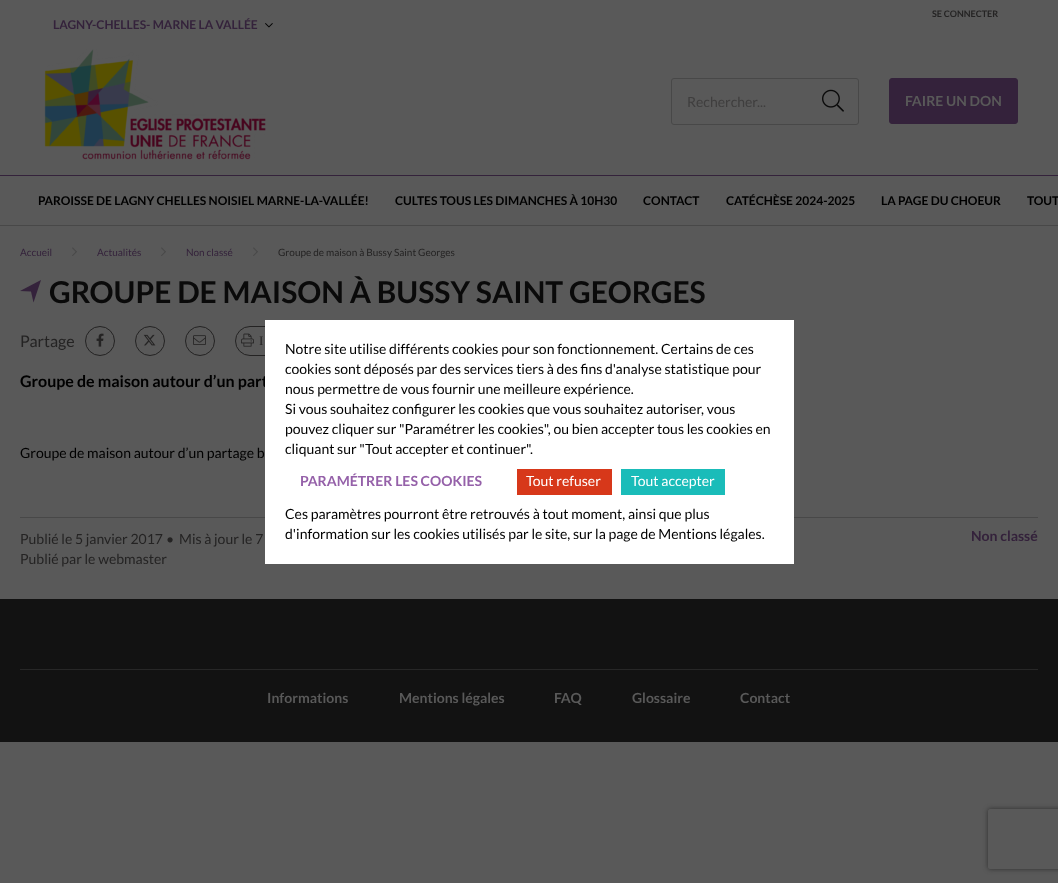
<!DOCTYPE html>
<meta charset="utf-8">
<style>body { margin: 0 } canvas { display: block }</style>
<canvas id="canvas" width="1058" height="883"></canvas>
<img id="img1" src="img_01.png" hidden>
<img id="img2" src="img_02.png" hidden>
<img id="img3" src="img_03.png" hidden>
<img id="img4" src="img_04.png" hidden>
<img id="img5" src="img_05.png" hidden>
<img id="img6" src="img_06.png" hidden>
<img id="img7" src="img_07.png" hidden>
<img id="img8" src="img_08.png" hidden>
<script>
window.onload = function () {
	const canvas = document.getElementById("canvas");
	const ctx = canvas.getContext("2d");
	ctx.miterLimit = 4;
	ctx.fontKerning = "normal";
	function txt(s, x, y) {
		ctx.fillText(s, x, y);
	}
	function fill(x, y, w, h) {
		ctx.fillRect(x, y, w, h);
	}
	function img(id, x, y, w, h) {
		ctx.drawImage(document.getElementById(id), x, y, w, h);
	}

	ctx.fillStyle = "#595959";
	fill(0, 0, 1058, 883);
	img("img1", 265, 23, 8, 5);
	ctx.fillStyle = "#34223B";
	fill(0, 175, 1058, 1);
	img("img2", 44, 49, 222, 111);
	ctx.beginPath();
	ctx.roundRect(671.5, 78.5, 187, 46, 2.5);
	ctx.strokeStyle = "#484848";
	ctx.stroke();
	img("img3", 822, 89, 22, 23);
	ctx.beginPath();
	ctx.roundRect(889.5, 78.5, 128, 45, 2.5);
	ctx.fill();
	ctx.strokeStyle = "#34223B";
	ctx.stroke();
	ctx.fillStyle = "#484848";
	fill(0, 225, 1058, 1);
	img("img4", 72, 247, 5, 9);
	img("img4", 161, 247, 5, 9);
	img("img4", 253, 247, 5, 9);
	ctx.fillStyle = "#34223B";
	ctx.beginPath();
	ctx.moveTo(20, 291);
	ctx.lineTo(31, 291.5);
	ctx.lineTo(33.5, 302.5);
	ctx.lineTo(41, 280);
	ctx.closePath();
	ctx.fill();
	ctx.beginPath();
	ctx.arc(100, 341, 14.5, 0, Math.PI * 2);
	ctx.strokeStyle = "#242323";
	ctx.stroke();
	img("img5", 96, 333, 8, 14);
	ctx.beginPath();
	ctx.arc(150, 341, 14.5, 0, Math.PI * 2);
	ctx.stroke();
	img("img6", 143, 334, 13, 12);
	ctx.beginPath();
	ctx.arc(200, 341, 14.5, 0, Math.PI * 2);
	ctx.stroke();
	img("img7", 193, 335, 13, 10);
	ctx.beginPath();
	ctx.roundRect(235.5, 326.5, 78, 29, 14.5);
	ctx.stroke();
	img("img8", 241, 333, 13, 14);
	ctx.fillStyle = "#484848";
	fill(20, 517, 1018, 1);
	ctx.fillStyle = "#121212";
	fill(0, 599, 1058, 143);
	ctx.fillStyle = "#272727";
	fill(20, 669, 1018, 1);
	ctx.save();
	ctx.beginPath();
	ctx.moveTo(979, 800);
	ctx.lineTo(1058, 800);
	ctx.lineTo(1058, 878);
	ctx.lineTo(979, 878);
	ctx.closePath();
	ctx.moveTo(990, 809);
	ctx.lineTo(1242, 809);
	ctx.bezierCurveTo(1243, 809, 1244, 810, 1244, 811);
	ctx.lineTo(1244, 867);
	ctx.bezierCurveTo(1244, 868, 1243, 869, 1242, 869);
	ctx.lineTo(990, 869);
	ctx.bezierCurveTo(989, 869, 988, 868, 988, 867);
	ctx.lineTo(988, 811);
	ctx.bezierCurveTo(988, 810, 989, 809, 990, 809);
	ctx.closePath();
	ctx.clip("evenodd");
	ctx.fillStyle = "#2D2D2D";
	ctx.filter = "blur(2.5px)";
	ctx.beginPath();
	ctx.roundRect(988, 809, 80, 60, 2);
	ctx.fill();
	ctx.filter = "none";
	ctx.restore();
	ctx.font = "bold 9px Lato";
	ctx.fillStyle = "#242323";
	txt("SE CONNECTER", 932, 17);
	ctx.font = "bold 12px Lato";
	ctx.fillStyle = "#34223B";
	txt("LAGNY-CHELLES- MARNE LA VALLÉE", 53, 29);
	ctx.font = "14px Lato";
	ctx.fillStyle = "#3F3E3E";
	txt("Rechercher...", 687, 107);
	ctx.font = "bold 14px Lato";
	ctx.fillStyle = "#595959";
	txt("FAIRE UN DON", 905, 106);
	ctx.font = "bold 12px Lato";
	ctx.fillStyle = "#000000";
	txt("PAROISSE DE LAGNY CHELLES NOISIEL MARNE-LA-VALLÉE!", 38, 205);
	txt("CULTES TOUS LES DIMANCHES À 10H30", 395, 205);
	txt("CONTACT", 643, 205);
	txt("CATÉCHÈSE 2024-2025", 726, 205);
	txt("LA PAGE DU CHOEUR", 881, 205);
	txt("TOUT", 1027, 205);
	ctx.font = "10px Lato";
	ctx.fillStyle = "#34223B";
	txt("Accueil", 20, 256);
	txt("Actualités", 97, 256);
	txt("Non classé", 186, 256);
	ctx.fillStyle = "#242323";
	txt("Groupe de maison à Bussy Saint Georges", 278, 256);
	ctx.font = "bold 30px Lato";
	ctx.fillStyle = "#0A0A0A";
	txt("GROUPE DE MAISON À BUSSY SAINT GEORGES", 49, 303);
	ctx.font = "16px Lato";
	ctx.fillStyle = "#242323";
	txt("Partage", 20, 347);
	ctx.font = "13px Liberation Serif";
	txt("I", 259, 345);
	ctx.font = "bold 16px Lato";
	ctx.fillStyle = "#000000";
	txt("Groupe de maison autour d’un part", 20, 387);
	ctx.font = "14px Lato";
	txt("Groupe de maison autour d’un partage b", 20, 458);
	ctx.fillStyle = "#242323";
	txt("Publié le 5 janvier 2017", 20, 544);
	txt("•", 166, 544);
	txt("Mis à jour le 7", 179, 544);
	txt("Publié par le webmaster", 20, 564);
	ctx.font = "bold 14px Lato";
	ctx.fillStyle = "#34223B";
	txt("Non classé", 971, 541);
	ctx.fillStyle = "#FFFFFF";
	fill(265, 320, 529, 244);
	ctx.font = "14px Lato";
	ctx.fillStyle = "#000000";
	txt("Notre site utilise différents cookies pour son fonctionnement. Certains de ces", 285, 354);
	txt("cookies sont déposés par des services tiers à des fins d'analyse statistique pour", 285, 374);
	txt("nous permettre de vous fournir une meilleure expérience.", 285, 394);
	txt("Si vous souhaitez configurer les cookies que vous souhaitez autoriser, vous", 285, 414);
	txt("pouvez cliquer sur \"Paramétrer les cookies\", ou bien accepter tous les cookies en", 285, 434);
	txt("cliquant sur \"Tout accepter et continuer\".", 285, 454);
	ctx.font = "bold 14px Lato";
	ctx.fillStyle = "#9561A9";
	txt("PARAMÉTRER LES COOKIES", 300, 486);
	ctx.fillStyle = "#D7381A";
	fill(517, 469, 95, 26);
	ctx.font = "14px Lato";
	ctx.fillStyle = "#FFFFFF";
	txt("Tout refuser", 526, 486);
	ctx.fillStyle = "#1ABCB9";
	fill(621, 469, 104, 26);
	ctx.fillStyle = "#FFFFFF";
	txt("Tout accepter", 631, 486);
	ctx.fillStyle = "#000000";
	txt("Ces paramètres pourront être retrouvés à tout moment, ainsi que plus", 285, 519);
	txt("d'information sur les cookies utilisés par le site, sur la page de Mentions légales.", 285, 539);
	ctx.font = "bold 14px Lato";
	ctx.fillStyle = "#595959";
	txt("Informations", 267, 703);
	txt("Mentions légales", 399, 703);
	txt("FAQ", 554, 703);
	txt("Glossaire", 632, 703);
	txt("Contact", 740, 703);
};
</script>
